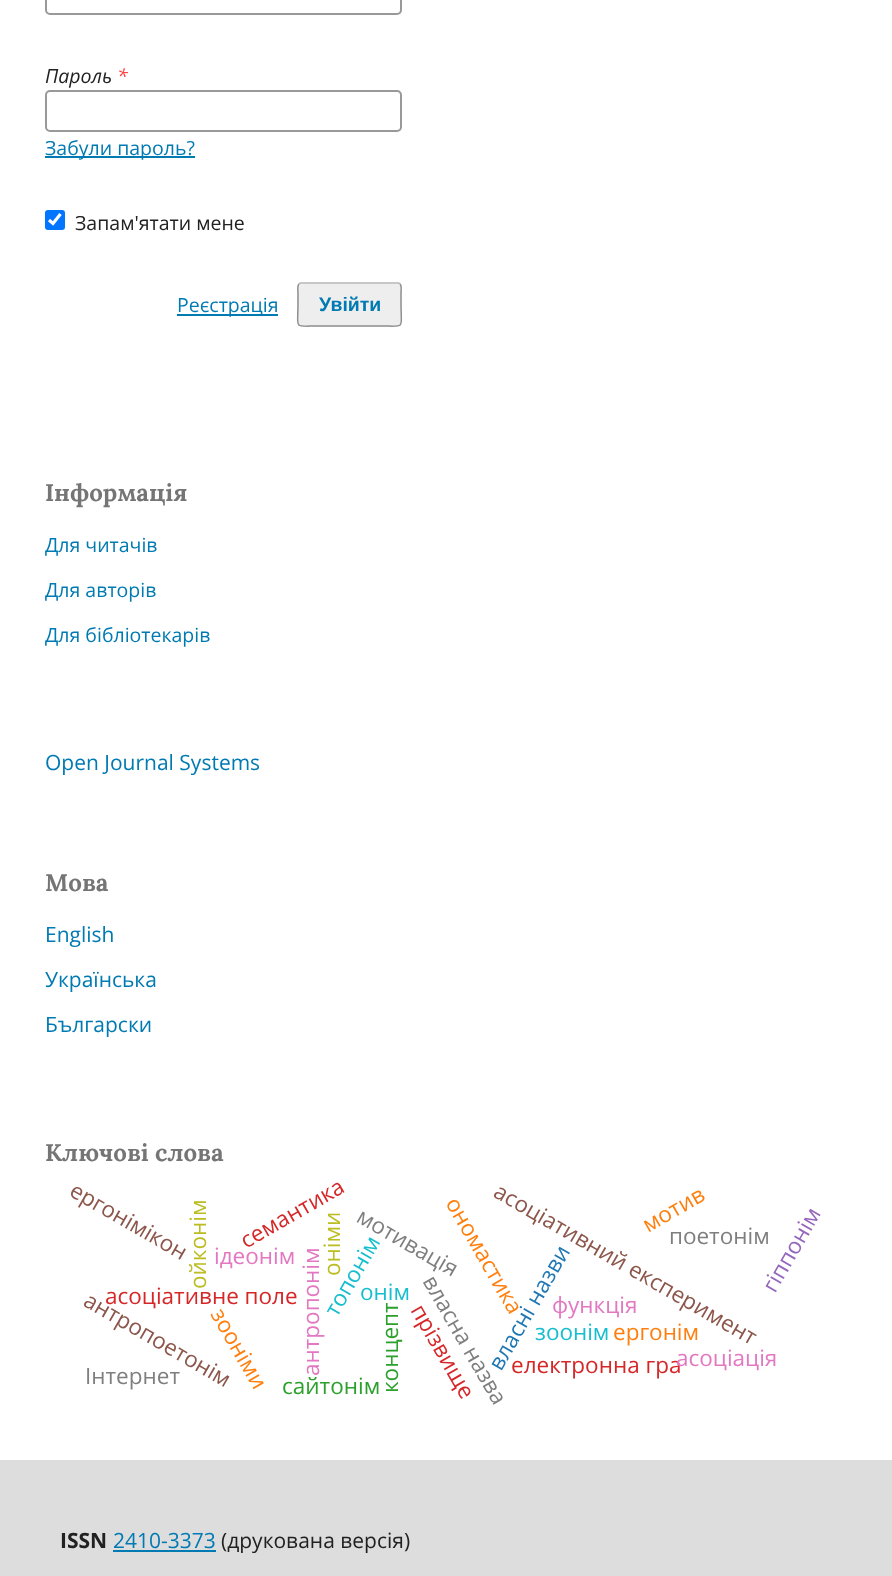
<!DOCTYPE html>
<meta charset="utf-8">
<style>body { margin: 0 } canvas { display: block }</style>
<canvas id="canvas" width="892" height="1576"></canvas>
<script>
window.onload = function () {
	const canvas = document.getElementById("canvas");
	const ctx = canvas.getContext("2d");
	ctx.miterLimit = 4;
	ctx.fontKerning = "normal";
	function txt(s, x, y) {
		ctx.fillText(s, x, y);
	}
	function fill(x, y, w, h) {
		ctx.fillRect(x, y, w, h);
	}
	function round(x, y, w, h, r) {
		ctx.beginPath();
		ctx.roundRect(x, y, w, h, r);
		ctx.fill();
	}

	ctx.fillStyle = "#FFFFFF";
	fill(0, 0, 892, 1576);
	ctx.beginPath();
	ctx.roundRect(46, -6, 355, 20, 4);
	ctx.strokeStyle = "#999999";
	ctx.lineWidth = 2;
	ctx.stroke();
	ctx.beginPath();
	ctx.roundRect(46, 91, 355, 40, 4);
	ctx.stroke();
	ctx.fillStyle = "#007AB2";
	fill(45, 156, 150, 2);
	ctx.fillStyle = "#0075FF";
	round(45, 210, 20, 20, 3);
	ctx.beginPath();
	ctx.moveTo(49, 220);
	ctx.lineTo(53, 223.5);
	ctx.lineTo(60.5, 214);
	ctx.strokeStyle = "#FFFFFF";
	ctx.lineWidth = 3.1;
	ctx.stroke();
	ctx.fillStyle = "#007AB2";
	fill(177, 314, 101, 2);
	ctx.fillStyle = "#EEEEEE";
	round(297, 282, 105, 45, 5);
	ctx.beginPath();
	ctx.moveTo(299, 284);
	ctx.bezierCurveTo(299.5, 283, 300.5, 283, 301.5, 283);
	ctx.lineTo(397.5, 283);
	ctx.bezierCurveTo(398.5, 283, 399.5, 283, 400, 284);
	ctx.strokeStyle = "#BBBBBB";
	ctx.lineWidth = 1.5;
	ctx.stroke();
	ctx.beginPath();
	ctx.moveTo(400, 284);
	ctx.bezierCurveTo(402, 286, 401, 290.5, 401, 292.5);
	ctx.lineTo(401, 304.5);
	ctx.bezierCurveTo(401, 329.5, 406, 326, 381.5, 326);
	ctx.lineTo(317.5, 326);
	ctx.bezierCurveTo(293, 326, 298, 329.5, 298, 304.5);
	ctx.lineTo(298, 292.5);
	ctx.bezierCurveTo(298, 290.5, 297, 286, 299, 284);
	ctx.strokeStyle = "rgba(0, 0, 0, 0.4)";
	ctx.stroke();
	ctx.fillStyle = "#DDDDDD";
	fill(0, 1460, 892, 116);
	ctx.fillStyle = "#007AB2";
	fill(113, 1550, 103, 2);
	ctx.font = "italic 19.5px Open Sans";
	ctx.fillStyle = "#212121";
	txt("Пароль", 45, 83);
	ctx.fillStyle = "#FF4040";
	txt("*", 117, 83);
	ctx.font = "19.5px Open Sans";
	ctx.fillStyle = "#007AB2";
	txt("Забули пароль?", 45, 155);
	ctx.fillStyle = "#212121";
	txt("Запам'ятати мене", 75, 230);
	ctx.fillStyle = "#007AB2";
	txt("Реєстрація", 177, 312);
	ctx.font = "bold 19.5px Liberation Sans";
	txt("Увійти", 319, 311);
	ctx.font = "bold 24px Lora";
	ctx.fillStyle = "#757575";
	txt("Інформація", 45, 501);
	ctx.font = "19.5px Open Sans";
	ctx.fillStyle = "#007AB2";
	txt("Для читачів", 45, 552);
	txt("Для авторів", 45, 597);
	txt("Для бібліотекарів", 45, 642);
	ctx.font = "21px Open Sans";
	txt("Open Journal Systems", 45, 770);
	ctx.font = "bold 24px Lora";
	ctx.fillStyle = "#757575";
	txt("Мова", 45, 891);
	ctx.font = "21px Open Sans";
	ctx.fillStyle = "#007AB2";
	txt("English", 45, 942);
	txt("Українська", 45, 987);
	txt("Български", 45, 1032);
	ctx.font = "bold 24px Lora";
	ctx.fillStyle = "#757575";
	txt("Ключові слова", 45, 1161);
	ctx.font = "22.5px Open Sans";
	ctx.fillStyle = "#8C564B";
	ctx.save();
	ctx.translate(68, 1195);
	ctx.rotate(30 * Math.PI / 180);
	ctx.fillText("ергонімікон", 0, 0);
	ctx.restore();
	ctx.fillStyle = "#D62728";
	ctx.save();
	ctx.translate(246, 1249);
	ctx.rotate(-30 * Math.PI / 180);
	ctx.fillText("семантика", 0, 0);
	ctx.restore();
	ctx.fillStyle = "#BCBD22";
	ctx.save();
	ctx.translate(206, 1289);
	ctx.rotate(-90 * Math.PI / 180);
	ctx.fillText("ойконім", 0, 0);
	ctx.restore();
	ctx.fillStyle = "#FF7F0E";
	ctx.save();
	ctx.translate(445, 1203);
	ctx.rotate(60 * Math.PI / 180);
	ctx.fillText("ономастика", 0, 0);
	ctx.restore();
	ctx.fillStyle = "#E377C2";
	txt("ідеонім", 214, 1264);
	ctx.save();
	ctx.translate(319, 1376);
	ctx.rotate(-90 * Math.PI / 180);
	ctx.fillText("антропонім", 0, 0);
	ctx.restore();
	ctx.fillStyle = "#17BECF";
	txt("онім", 360, 1300);
	ctx.save();
	ctx.translate(337, 1318);
	ctx.rotate(-60 * Math.PI / 180);
	ctx.fillText("топонім", 0, 0);
	ctx.restore();
	ctx.fillStyle = "#BCBD22";
	ctx.save();
	ctx.translate(340, 1276);
	ctx.rotate(-90 * Math.PI / 180);
	ctx.fillText("оніми", 0, 0);
	ctx.restore();
	ctx.fillStyle = "#7F7F7F";
	ctx.save();
	ctx.translate(355, 1221);
	ctx.rotate(30 * Math.PI / 180);
	ctx.fillText("мотивація", 0, 0);
	ctx.restore();
	ctx.save();
	ctx.translate(422, 1281);
	ctx.rotate(60 * Math.PI / 180);
	ctx.fillText("власна назва", 0, 0);
	ctx.restore();
	ctx.fillStyle = "#1F77B4";
	ctx.save();
	ctx.translate(501, 1372);
	ctx.rotate(-60 * Math.PI / 180);
	ctx.fillText("власні назви", 0, 0);
	ctx.restore();
	ctx.fillStyle = "#8C564B";
	ctx.save();
	ctx.translate(492, 1196);
	ctx.rotate(30 * Math.PI / 180);
	ctx.fillText("асоціативний експеримент", 0, 0);
	ctx.restore();
	ctx.fillStyle = "#FF7F0E";
	ctx.save();
	ctx.translate(648, 1233);
	ctx.rotate(-30 * Math.PI / 180);
	ctx.fillText("мотив", 0, 0);
	ctx.restore();
	ctx.fillStyle = "#7F7F7F";
	txt("поетонім", 669, 1244);
	ctx.fillStyle = "#9467BD";
	ctx.save();
	ctx.translate(775, 1294);
	ctx.rotate(-60 * Math.PI / 180);
	ctx.fillText("гіппонім", 0, 0);
	ctx.restore();
	ctx.fillStyle = "#D62728";
	txt("асоціативне поле", 105, 1304);
	ctx.fillStyle = "#E377C2";
	txt("функція", 552, 1313);
	ctx.fillStyle = "#8C564B";
	ctx.save();
	ctx.translate(82, 1305);
	ctx.rotate(30 * Math.PI / 180);
	ctx.fillText("антропоетонім", 0, 0);
	ctx.restore();
	ctx.fillStyle = "#FF7F0E";
	ctx.save();
	ctx.translate(210, 1314);
	ctx.rotate(60 * Math.PI / 180);
	ctx.fillText("зооніми", 0, 0);
	ctx.restore();
	ctx.fillStyle = "#2CA02C";
	ctx.save();
	ctx.translate(398, 1393);
	ctx.rotate(-90 * Math.PI / 180);
	ctx.fillText("концепт", 0, 0);
	ctx.restore();
	ctx.fillStyle = "#D62728";
	ctx.save();
	ctx.translate(410, 1310);
	ctx.rotate(60 * Math.PI / 180);
	ctx.fillText("прізвище", 0, 0);
	ctx.restore();
	ctx.fillStyle = "#17BECF";
	txt("зоонім", 535, 1340);
	ctx.fillStyle = "#FF7F0E";
	txt("ергонім", 613, 1340);
	ctx.fillStyle = "#7F7F7F";
	txt("Інтернет", 85, 1384);
	ctx.fillStyle = "#2CA02C";
	txt("сайтонім", 282, 1394);
	ctx.fillStyle = "#D62728";
	txt("електронна гра", 511, 1373);
	ctx.fillStyle = "#E377C2";
	txt("асоціація", 676, 1366);
	ctx.font = "bold 21px Open Sans";
	ctx.fillStyle = "#212121";
	txt("ISSN", 60, 1548);
	ctx.font = "21px Open Sans";
	ctx.fillStyle = "#007AB2";
	txt("2410-3373", 113, 1548);
	ctx.fillStyle = "#212121";
	txt("(друкована версія)", 221, 1548);
};
</script>
